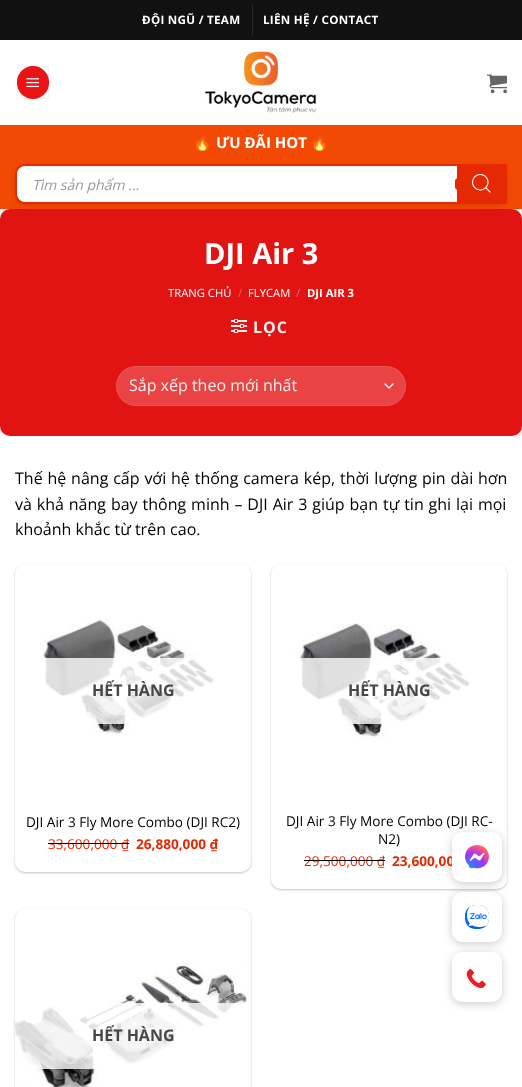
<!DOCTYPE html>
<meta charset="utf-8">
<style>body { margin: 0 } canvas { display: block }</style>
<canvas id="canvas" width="522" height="1087"></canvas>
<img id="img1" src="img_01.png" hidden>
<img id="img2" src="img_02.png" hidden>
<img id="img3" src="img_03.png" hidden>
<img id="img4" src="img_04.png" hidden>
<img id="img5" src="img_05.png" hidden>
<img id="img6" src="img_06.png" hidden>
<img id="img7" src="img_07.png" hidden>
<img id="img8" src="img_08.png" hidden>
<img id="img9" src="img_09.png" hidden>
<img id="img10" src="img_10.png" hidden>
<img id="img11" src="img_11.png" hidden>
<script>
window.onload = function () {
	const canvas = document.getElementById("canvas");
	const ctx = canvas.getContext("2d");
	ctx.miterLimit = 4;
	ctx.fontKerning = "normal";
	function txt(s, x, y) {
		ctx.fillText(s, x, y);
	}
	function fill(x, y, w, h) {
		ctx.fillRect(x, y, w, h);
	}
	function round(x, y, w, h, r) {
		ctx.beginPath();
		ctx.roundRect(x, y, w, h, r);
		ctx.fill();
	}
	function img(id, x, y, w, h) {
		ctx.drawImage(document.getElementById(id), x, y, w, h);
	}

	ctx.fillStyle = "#FFFFFF";
	fill(0, 0, 522, 1087);
	ctx.fillStyle = "#111111";
	fill(0, 0, 522, 40);
	ctx.fillStyle = "#292929";
	fill(252, 5, 1, 30);
	ctx.fillStyle = "#EA1414";
	round(17, 66, 32, 33, 16);
	ctx.strokeStyle = "rgba(0, 0, 0, 0.05)";
	ctx.strokeRect(17.5, 66.5, 31, 32);
	img("img1", 26, 78, 13, 10);
	img("img2", 205, 51, 112, 62);
	img("img3", 487, 74, 20, 20);
	ctx.fillStyle = "#F24905";
	fill(0, 125, 522, 84);
	ctx.fillStyle = "#EA1414";
	round(0, 209, 522, 227, 10);
	ctx.fillStyle = "rgba(0, 0, 0, 0.03)";
	fill(0, 209, 522, 227);
	ctx.fillStyle = "rgba(0, 0, 0, 0.1)";
	ctx.filter = "blur(2.5px)";
	ctx.beginPath();
	ctx.roundRect(15, 166, 492, 40, 10);
	ctx.fill();
	ctx.filter = "none";
	ctx.fillStyle = "#FFFFFF";
	ctx.beginPath();
	ctx.roundRect(16, 165, 490, 38, 9);
	ctx.fill();
	ctx.strokeStyle = "#E42903";
	ctx.lineWidth = 2;
	ctx.stroke();
	ctx.fillStyle = "#E42903";
	ctx.beginPath();
	ctx.roundRect(457, 164, 50, 40, [0, 2, 2, 0]);
	ctx.fill();
	ctx.beginPath();
	ctx.moveTo(459, 187);
	ctx.bezierCurveTo(459, 188.5, 458.5, 190, 458, 191);
	ctx.lineTo(455, 188);
	ctx.lineTo(455, 180);
	ctx.lineTo(458, 177);
	ctx.bezierCurveTo(460, 179.5, 459, 184, 459, 187);
	ctx.closePath();
	ctx.fill();
	img("img4", 472, 174, 19, 19);
	img("img5", 231, 319, 16, 14);
	ctx.fillStyle = "#E94343";
	round(116, 366, 290, 40, 20);
	ctx.beginPath();
	ctx.moveTo(385, 384);
	ctx.lineTo(389, 388);
	ctx.lineTo(393, 384);
	ctx.strokeStyle = "#FFFFFF";
	ctx.lineWidth = 1.3;
	ctx.lineCap = "round";
	ctx.lineJoin = "round";
	ctx.stroke();
	ctx.beginPath();
	ctx.roundRect(116.5, 366.5, 289, 39, 19.5);
	ctx.strokeStyle = "rgba(255, 255, 255, 0.09)";
	ctx.lineWidth = 1;
	ctx.lineJoin = "miter";
	ctx.stroke();
	ctx.fillStyle = "rgba(0, 0, 0, 0.24)";
	ctx.filter = "blur(1px)";
	ctx.beginPath();
	ctx.roundRect(15, 565, 236, 308, 10);
	ctx.fill();
	ctx.filter = "none";
	ctx.fillStyle = "#FFFFFF";
	round(15, 564, 236, 308, 10);
	img("img6", 42, 618, 172, 116);
	ctx.fillStyle = "rgba(255, 255, 255, 0.81)";
	round(15, 658, 236, 66, 10);
	ctx.fillStyle = "rgba(0, 0, 0, 0.24)";
	ctx.filter = "blur(1px)";
	ctx.beginPath();
	ctx.roundRect(271, 565, 236, 325, 10);
	ctx.fill();
	ctx.filter = "none";
	ctx.fillStyle = "#FFFFFF";
	round(271, 564, 236, 325, 10);
	img("img7", 295, 623, 176, 116);
	ctx.fillStyle = "rgba(255, 255, 255, 0.81)";
	round(271, 658, 236, 66, 10);
	ctx.fillStyle = "rgba(0, 0, 0, 0.24)";
	ctx.filter = "blur(1px)";
	ctx.beginPath();
	ctx.roundRect(15, 910, 236, 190, 10);
	ctx.fill();
	ctx.filter = "none";
	ctx.fillStyle = "#FFFFFF";
	round(15, 909, 236, 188, 10);
	img("img8", 15, 963, 233, 124);
	ctx.fillStyle = "rgba(255, 255, 255, 0.81)";
	round(15, 1003, 236, 66, 10);
	ctx.fillStyle = "rgba(0, 0, 0, 0.2)";
	ctx.filter = "blur(4px)";
	ctx.beginPath();
	ctx.roundRect(452, 834, 50, 50, 10);
	ctx.fill();
	ctx.filter = "none";
	ctx.letterSpacing = "0.3px";
	ctx.font = "bold 11.6px Open Sans";
	ctx.fillStyle = "#FFFFFF";
	txt("ĐỘI NGŨ / TEAM", 142, 24);
	txt("LIÊN HỆ / CONTACT", 263, 24);
	ctx.letterSpacing = "0px";
	ctx.font = "bold 15px Noto Color Emoji";
	txt("🔥", 193, 148);
	ctx.font = "bold 15px Open Sans";
	txt("ƯU ĐÃI HOT", 216, 148);
	ctx.font = "bold 15px Noto Color Emoji";
	txt("🔥", 310, 148);
	ctx.font = "italic 14px Open Sans";
	ctx.fillStyle = "#999999";
	txt("Tìm sản phẩm ...", 32, 190);
	ctx.font = "bold 29px Open Sans";
	ctx.fillStyle = "#FFFFFF";
	txt("DJI Air 3", 204, 264);
	ctx.font = "11.25px Open Sans";
	txt("TRANG CHỦ", 168, 297);
	ctx.fillStyle = "#ED6666";
	txt("/", 238, 297);
	ctx.fillStyle = "#FFFFFF";
	txt("FLYCAM", 248, 297);
	ctx.fillStyle = "#ED6666";
	txt("/", 296, 297);
	ctx.font = "bold 11.25px Open Sans";
	ctx.fillStyle = "#FFFFFF";
	txt("DJI AIR 3", 307, 297);
	ctx.letterSpacing = "1px";
	ctx.font = "bold 16px Open Sans";
	ctx.fillStyle = "#F1F1F1";
	txt("LỌC", 253, 333);
	ctx.letterSpacing = "0px";
	ctx.font = "16px Open Sans";
	txt("Sắp xếp theo mới nhất", 129, 391);
	ctx.wordSpacing = "0.7px";
	ctx.fillStyle = "#000000";
	txt("Thế hệ nâng cấp với hệ thống camera kép, thời lượng pin dài hơn", 15, 484);
	ctx.wordSpacing = "0.75px";
	txt("và khả năng bay thông minh – DJI Air 3 giúp bạn tự tin ghi lại mọi", 15, 510);
	ctx.wordSpacing = "0px";
	txt("khoảnh khắc từ trên cao.", 15, 535);
	ctx.font = "bold 16px Open Sans";
	ctx.fillStyle = "#464646";
	txt("HẾT HÀNG", 92, 696);
	ctx.font = "13.6px Open Sans";
	ctx.fillStyle = "#000000";
	txt("DJI Air 3 Fly More Combo (DJI RC2)", 26, 827);
	ctx.fillStyle = "#E42903";
	txt("33,600,000 ₫", 48, 849);
	ctx.fillStyle = "#000000";
	fill(48, 843, 81, 1);
	ctx.font = "bold 13.6px Open Sans";
	ctx.fillStyle = "#E42903";
	txt("26,880,000 ₫", 136, 849);
	ctx.font = "bold 16px Open Sans";
	ctx.fillStyle = "#464646";
	txt("HẾT HÀNG", 348, 696);
	ctx.font = "13.6px Open Sans";
	ctx.fillStyle = "#000000";
	txt("DJI Air 3 Fly More Combo (DJI RC-", 286, 826);
	txt("N2)", 378, 844);
	ctx.fillStyle = "#E42903";
	txt("29,500,000 ₫", 304, 866);
	ctx.fillStyle = "#000000";
	fill(304, 860, 81, 1);
	ctx.font = "bold 13.6px Open Sans";
	ctx.fillStyle = "#E42903";
	txt("23,600,00", 392, 866);
	ctx.font = "bold 16px Open Sans";
	ctx.fillStyle = "#464646";
	txt("HẾT HÀNG", 92, 1041);
	ctx.fillStyle = "#FFFFFF";
	round(452, 832, 50, 50, 10);
	img("img9", 465, 845, 24, 24);
	ctx.fillStyle = "rgba(0, 0, 0, 0.2)";
	ctx.filter = "blur(4px)";
	ctx.beginPath();
	ctx.roundRect(452, 894, 50, 50, 10);
	ctx.fill();
	ctx.filter = "none";
	ctx.fillStyle = "#FFFFFF";
	round(452, 892, 50, 50, 10);
	img("img10", 465, 905, 24, 24);
	ctx.fillStyle = "rgba(0, 0, 0, 0.2)";
	ctx.filter = "blur(4px)";
	ctx.beginPath();
	ctx.roundRect(452, 954, 50, 50, 10);
	ctx.fill();
	ctx.filter = "none";
	ctx.fillStyle = "#FFFFFF";
	round(452, 952, 50, 50, 10);
	img("img11", 466, 968, 20, 20);
};
</script>
